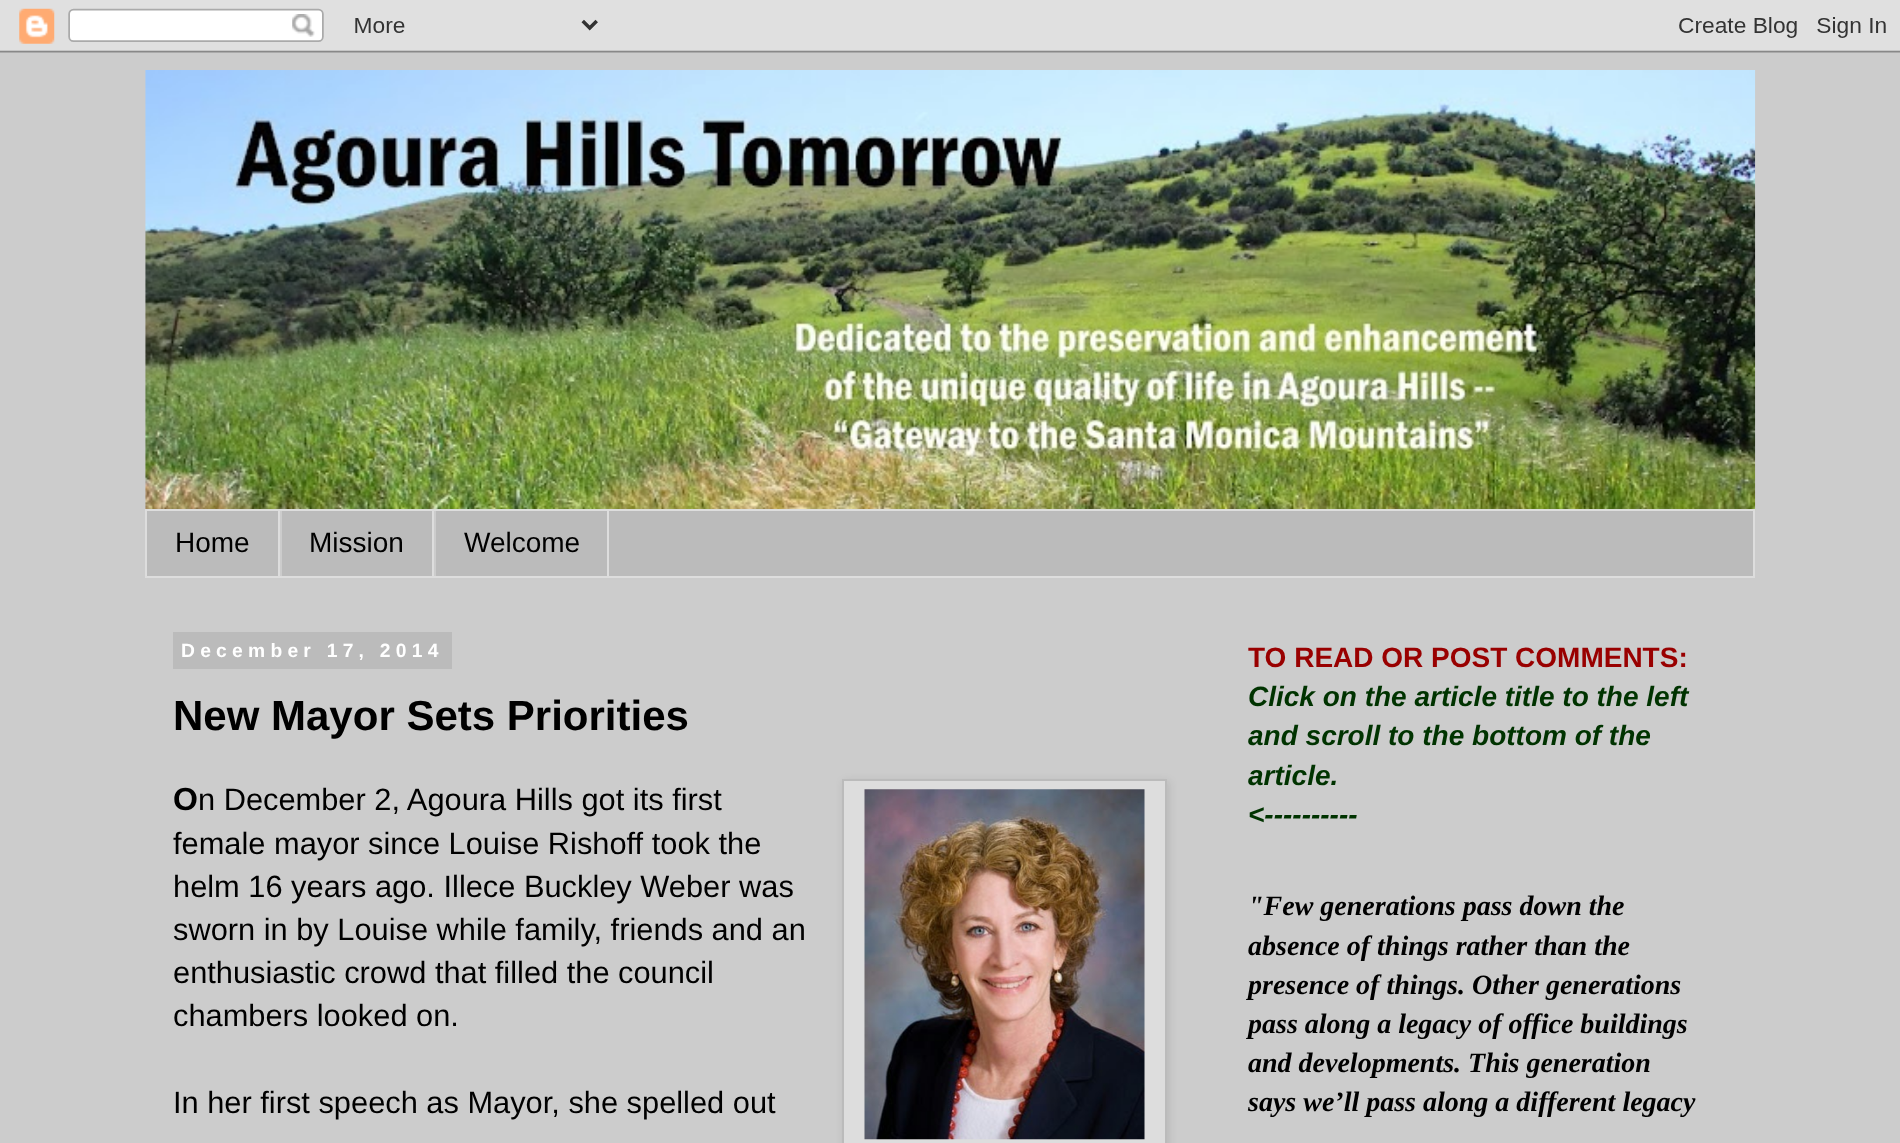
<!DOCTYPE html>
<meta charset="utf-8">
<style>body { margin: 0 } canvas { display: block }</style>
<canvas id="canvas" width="1900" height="1143"></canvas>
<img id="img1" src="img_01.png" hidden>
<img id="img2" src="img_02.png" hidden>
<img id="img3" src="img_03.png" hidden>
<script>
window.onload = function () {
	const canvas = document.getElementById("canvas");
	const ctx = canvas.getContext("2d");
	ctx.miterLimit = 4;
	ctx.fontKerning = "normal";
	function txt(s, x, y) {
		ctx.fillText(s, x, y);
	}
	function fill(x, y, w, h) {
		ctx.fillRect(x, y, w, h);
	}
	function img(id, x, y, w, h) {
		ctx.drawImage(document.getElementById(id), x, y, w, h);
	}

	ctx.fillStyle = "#CCCCCC";
	fill(0, 0, 1900, 1143);
	img("img1", 0, 0, 1900, 53);
	img("img2", 145, 70, 1611, 441);
	ctx.fillStyle = "#BBBBBB";
	ctx.beginPath();
	ctx.rect(146, 510, 1608, 67);
	ctx.fill();
	ctx.strokeStyle = "#DDDDDD";
	ctx.lineWidth = 2;
	ctx.stroke();
	ctx.fillStyle = "#DDDDDD";
	fill(278, 511, 2, 65);
	fill(432, 511, 2, 65);
	ctx.fillStyle = "#CCCCCC";
	fill(280, 511, 2, 65);
	ctx.fillStyle = "#DDDDDD";
	fill(607, 511, 2, 65);
	ctx.fillStyle = "#CCCCCC";
	fill(434, 511, 2, 65);
	ctx.fillStyle = "#BBBBBB";
	fill(173, 632, 279, 37);
	ctx.fillStyle = "rgba(0, 0, 0, 0.1)";
	ctx.filter = "blur(4.5px)";
	ctx.beginPath();
	ctx.rect(844, 781, 325, 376);
	ctx.fill();
	ctx.filter = "none";
	ctx.fillStyle = "#DDDDDD";
	ctx.beginPath();
	ctx.rect(843, 780, 323, 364);
	ctx.fill();
	ctx.strokeStyle = "#BBBBBB";
	ctx.stroke();
	img("img3", 864, 789, 281, 351);
	ctx.font = "28px Liberation Sans";
	ctx.fillStyle = "#000000";
	txt("Home", 175, 552);
	txt("Mission", 309, 552);
	txt("Welcome", 464, 552);
	ctx.letterSpacing = "5.25px";
	ctx.font = "bold 19.25px Liberation Sans";
	ctx.fillStyle = "#FFFFFF";
	txt("December 17, 2014", 181, 657);
	ctx.letterSpacing = "0px";
	ctx.font = "bold 42px Liberation Sans";
	ctx.fillStyle = "#000000";
	txt("New Mayor Sets Priorities", 173, 730);
	ctx.font = "bold 32px Liberation Sans";
	txt("O", 173, 810);
	ctx.font = "30.8px Liberation Sans";
	txt("n December 2, Agoura Hills got its first", 198, 810);
	txt("female mayor since Louise Rishoff took the", 173, 854);
	txt("helm 16 years ago. Illece Buckley Weber was", 173, 897);
	txt("sworn in by Louise while family, friends and an", 173, 940);
	txt("enthusiastic crowd that filled the council", 173, 983);
	txt("chambers looked on.", 173, 1026);
	txt("In her first speech as Mayor, she spelled out", 173, 1113);
	ctx.font = "bold 28px Liberation Sans";
	ctx.fillStyle = "#990000";
	txt("TO READ OR POST COMMENTS:", 1248, 667);
	ctx.font = "italic bold 28px Liberation Sans";
	ctx.fillStyle = "#003300";
	txt("Click on the article title to the left", 1248, 706);
	txt("and scroll to the bottom of the", 1248, 745);
	txt("article.", 1248, 785);
	txt("<----------", 1248, 824);
	ctx.font = "italic bold 28px Liberation Serif";
	ctx.fillStyle = "#000000";
	txt("\"Few generations pass down the", 1248, 915);
	txt("absence of things rather than the", 1248, 955);
	txt("presence of things. Other generations", 1248, 994);
	txt("pass along a legacy of office buildings", 1248, 1033);
	txt("and developments. This generation", 1248, 1072);
	txt("says we’ll pass along a different legacy", 1248, 1111);
};
</script>
